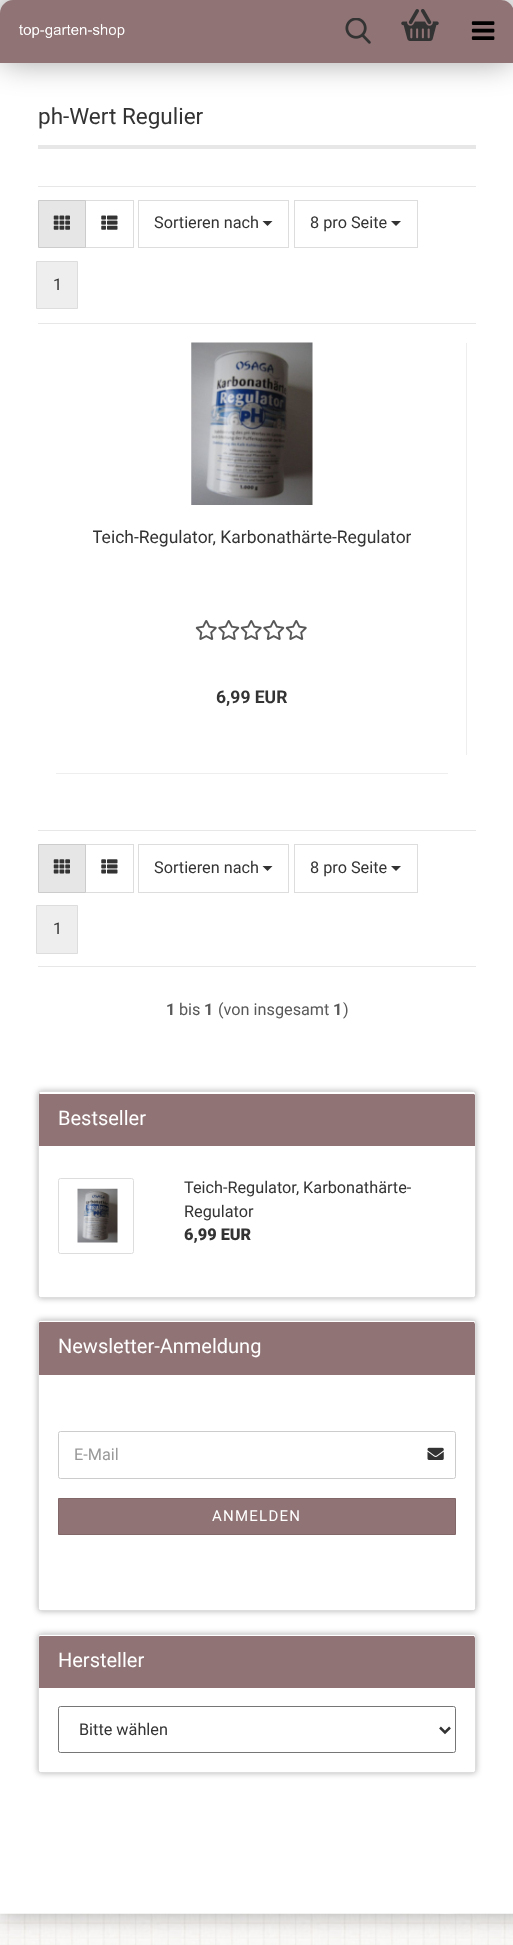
<!DOCTYPE html>
<meta charset="utf-8">
<style>body { margin: 0 } canvas { display: block }</style>
<canvas id="canvas" width="513" height="1945"></canvas>
<img id="img1" src="img_01.png" hidden>
<img id="img2" src="img_02.png" hidden>
<img id="img3" src="img_03.png" hidden>
<img id="img4" src="img_04.png" hidden>
<img id="img5" src="img_05.png" hidden>
<img id="img6" src="img_06.png" hidden>
<img id="img7" src="img_07.png" hidden>
<img id="img8" src="img_08.png" hidden>
<img id="img9" src="img_09.png" hidden>
<img id="img10" src="img_10.png" hidden>
<img id="img11" src="img_11.png" hidden>
<img id="img12" src="img_12.png" hidden>
<img id="img13" src="img_13.png" hidden>
<img id="img14" src="img_14.png" hidden>
<img id="img15" src="img_15.png" hidden>
<script>
window.onload = function () {
	const canvas = document.getElementById("canvas");
	const ctx = canvas.getContext("2d");
	ctx.miterLimit = 4;
	ctx.fontKerning = "normal";
	function txt(s, x, y) {
		ctx.fillText(s, x, y);
	}
	function fill(x, y, w, h) {
		ctx.fillRect(x, y, w, h);
	}
	function round(x, y, w, h, r) {
		ctx.beginPath();
		ctx.roundRect(x, y, w, h, r);
		ctx.fill();
	}
	function img(id, x, y, w, h) {
		ctx.drawImage(document.getElementById(id), x, y, w, h);
	}

	ctx.fillStyle = "#F3F3F3";
	fill(0, 0, 513, 1945);
	ctx.fillStyle = "#FFFFFF";
	round(0, 0, 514, 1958, 13);
	ctx.fillStyle = "rgba(0, 0, 0, 0.35)";
	ctx.filter = "blur(15.5px)";
	ctx.beginPath();
	ctx.roundRect(0, 0, 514, 63, 13);
	ctx.fill();
	ctx.filter = "none";
	ctx.fillStyle = "#907375";
	ctx.beginPath();
	ctx.moveTo(13, 0);
	ctx.lineTo(501, 0);
	ctx.bezierCurveTo(508, 0, 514, 6, 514, 13);
	ctx.lineTo(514, 63);
	ctx.lineTo(0, 63);
	ctx.lineTo(0, 13);
	ctx.bezierCurveTo(0, 6, 6, 0, 13, 0);
	ctx.closePath();
	ctx.fill();
	img("img1", 18, 23, 107, 15);
	img("img2", 345, 18, 26, 26);
	img("img3", 401, 9, 38, 32);
	img("img4", 471, 21, 24, 19);
	ctx.fillStyle = "#E7E7E7";
	fill(38, 145, 438, 4);
	fill(38, 186, 438, 1);
	fill(38, 323, 438, 1);
	ctx.strokeStyle = "#DDDDDD";
	ctx.strokeRect(85.5, 200.5, 48, 47);
	ctx.fillStyle = "#E6E6E6";
	ctx.beginPath();
	ctx.rect(38.5, 200.5, 47, 47);
	ctx.fill();
	ctx.strokeStyle = "#CCCCCC";
	ctx.stroke();
	img("img5", 53, 215, 17, 15);
	img("img6", 101, 215, 17, 15);
	ctx.strokeStyle = "#DDDDDD";
	ctx.strokeRect(138.5, 200.5, 150, 47);
	ctx.fillStyle = "#333333";
	ctx.beginPath();
	ctx.moveTo(262.5, 221);
	ctx.lineTo(272.5, 221);
	ctx.lineTo(267.5, 226);
	ctx.closePath();
	ctx.fill();
	ctx.strokeRect(294.5, 200.5, 123, 47);
	ctx.beginPath();
	ctx.moveTo(391, 221);
	ctx.lineTo(401, 221);
	ctx.lineTo(396, 226);
	ctx.closePath();
	ctx.fill();
	ctx.fillStyle = "#EEEEEE";
	ctx.beginPath();
	ctx.rect(36.5, 261.5, 41, 47);
	ctx.fill();
	ctx.stroke();
	fill(466, 343, 1, 412);
	fill(56, 773, 392, 1);
	img("img7", 191, 342, 122, 163);
	img("img8", 195, 620, 22, 20);
	img("img9", 218, 620, 22, 20);
	img("img8", 240, 620, 22, 20);
	img("img9", 263, 620, 22, 20);
	img("img8", 285, 620, 22, 20);
	ctx.fillStyle = "#E7E7E7";
	fill(38, 830, 438, 1);
	fill(38, 966, 438, 1);
	ctx.strokeRect(85.5, 844.5, 48, 48);
	ctx.fillStyle = "#E6E6E6";
	ctx.beginPath();
	ctx.rect(38.5, 844.5, 47, 48);
	ctx.fill();
	ctx.strokeStyle = "#CCCCCC";
	ctx.stroke();
	img("img10", 53, 859, 17, 15);
	img("img11", 101, 859, 17, 15);
	ctx.strokeStyle = "#DDDDDD";
	ctx.strokeRect(138.5, 844.5, 150, 48);
	ctx.fillStyle = "#333333";
	ctx.beginPath();
	ctx.moveTo(262.5, 866);
	ctx.lineTo(272.5, 866);
	ctx.lineTo(267.5, 871);
	ctx.closePath();
	ctx.fill();
	ctx.strokeRect(294.5, 844.5, 123, 48);
	ctx.beginPath();
	ctx.moveTo(391, 866);
	ctx.lineTo(401, 866);
	ctx.lineTo(396, 871);
	ctx.closePath();
	ctx.fill();
	ctx.fillStyle = "#EEEEEE";
	ctx.beginPath();
	ctx.rect(36.5, 905.5, 41, 48);
	ctx.fill();
	ctx.stroke();
	ctx.fillStyle = "rgba(0, 0, 0, 0.3)";
	ctx.filter = "blur(3px)";
	ctx.beginPath();
	ctx.roundRect(38, 1091, 438, 207, 2.5);
	ctx.fill();
	ctx.filter = "none";
	ctx.fillStyle = "#FFFFFF";
	ctx.beginPath();
	ctx.roundRect(38.5, 1091.5, 437, 206, 2);
	ctx.fill();
	ctx.stroke();
	ctx.fillStyle = "#907375";
	ctx.beginPath();
	ctx.roundRect(39, 1093, 436, 53, [1, 1, 0, 0]);
	ctx.fill();
	ctx.fillStyle = "#FFFFFF";
	ctx.beginPath();
	ctx.moveTo(40, 1094);
	ctx.lineTo(474, 1094);
	ctx.lineTo(475, 1095);
	ctx.lineTo(475, 1093);
	ctx.lineTo(257, 1093);
	ctx.lineTo(40, 1093);
	ctx.lineTo(39, 1094);
	ctx.lineTo(39, 1095);
	ctx.bezierCurveTo(39, 1094, 39, 1094, 40, 1094);
	ctx.closePath();
	ctx.fill();
	ctx.beginPath();
	ctx.roundRect(58.5, 1178.5, 75, 75, 2);
	ctx.stroke();
	img("img12", 77, 1188, 41, 55);
	ctx.fillStyle = "rgba(0, 0, 0, 0.3)";
	ctx.filter = "blur(3px)";
	ctx.beginPath();
	ctx.roundRect(38, 1320, 438, 291, 2.5);
	ctx.fill();
	ctx.filter = "none";
	ctx.fillStyle = "#FFFFFF";
	ctx.beginPath();
	ctx.roundRect(38.5, 1320.5, 437, 290, 2);
	ctx.fill();
	ctx.stroke();
	ctx.fillStyle = "#907375";
	ctx.beginPath();
	ctx.roundRect(39, 1321, 436, 54, [1, 1, 0, 0]);
	ctx.fill();
	ctx.fillStyle = "#FFFFFF";
	ctx.beginPath();
	ctx.moveTo(40, 1322);
	ctx.lineTo(474, 1322);
	ctx.lineTo(475, 1324);
	ctx.lineTo(475, 1322);
	ctx.bezierCurveTo(475, 1321, 475, 1321, 474, 1321);
	ctx.lineTo(40, 1321);
	ctx.bezierCurveTo(39, 1321, 39, 1321, 39, 1322);
	ctx.lineTo(39, 1324);
	ctx.bezierCurveTo(39, 1323, 39, 1322, 40, 1322);
	ctx.closePath();
	ctx.fill();
	ctx.beginPath();
	ctx.roundRect(58.5, 1431.5, 397, 47, 2);
	ctx.strokeStyle = "#CCCCCC";
	ctx.stroke();
	img("img13", 427, 1447, 17, 13);
	ctx.fillStyle = "#907375";
	ctx.beginPath();
	ctx.rect(58.5, 1498.5, 397, 36);
	ctx.fill();
	ctx.strokeStyle = "#826769";
	ctx.stroke();
	ctx.fillStyle = "rgba(0, 0, 0, 0.3)";
	ctx.filter = "blur(3px)";
	ctx.beginPath();
	ctx.roundRect(38, 1634, 438, 139, 2.5);
	ctx.fill();
	ctx.filter = "none";
	ctx.fillStyle = "#FFFFFF";
	ctx.beginPath();
	ctx.roundRect(38.5, 1634.5, 437, 138, 2);
	ctx.fill();
	ctx.strokeStyle = "#DDDDDD";
	ctx.stroke();
	ctx.fillStyle = "#907375";
	ctx.beginPath();
	ctx.roundRect(39, 1635, 436, 53, [1, 1, 0, 0]);
	ctx.fill();
	ctx.fillStyle = "#FFFFFF";
	ctx.beginPath();
	ctx.moveTo(40, 1636);
	ctx.lineTo(474, 1636);
	ctx.lineTo(475, 1638);
	ctx.lineTo(475, 1636);
	ctx.bezierCurveTo(475, 1635, 475, 1635, 474, 1635);
	ctx.lineTo(40, 1635);
	ctx.bezierCurveTo(39, 1635, 39, 1635, 39, 1636);
	ctx.lineTo(39, 1638);
	ctx.bezierCurveTo(39, 1637, 39, 1636, 40, 1636);
	ctx.closePath();
	ctx.fill();
	ctx.beginPath();
	ctx.roundRect(58.5, 1706.5, 397, 46, 2);
	ctx.strokeStyle = "#767676";
	ctx.stroke();
	ctx.beginPath();
	ctx.moveTo(440, 1727.5);
	ctx.lineTo(445, 1732.5);
	ctx.lineTo(450, 1727.5);
	ctx.strokeStyle = "#333333";
	ctx.lineWidth = 2.5;
	ctx.stroke();
	img("img14", 0, 1913, 513, 26);
	img("img15", 0, 1939, 513, 6);
	ctx.beginPath();
	ctx.ellipse(445, 1907.5, 37.5, 6, 0, 0, Math.PI * 2);
	ctx.fill();
	ctx.font = "22.5px Roboto";
	ctx.fillStyle = "#333333";
	txt("ph-Wert Regulier", 38, 124);
	ctx.font = "16.25px Roboto";
	txt("Sortieren nach", 154, 228);
	txt("8 pro Seite", 310, 228);
	txt("1", 53, 290);
	ctx.save();
	ctx.beginPath();
	ctx.rect(93, 524, 318, 25);
	ctx.clip();
	ctx.font = "17.5px Roboto";
	txt("Teich-Regulator, Karbonathärte-Regulator", 92, 543);
	ctx.restore();
	ctx.font = "bold 17.5px Roboto";
	txt("6,99 EUR", 216, 703);
	ctx.font = "16.25px Roboto";
	txt("Sortieren nach", 154, 873);
	txt("8 pro Seite", 310, 873);
	txt("1", 53, 934);
	ctx.font = "bold 16.25px Roboto";
	ctx.fillStyle = "#595959";
	txt("1", 166, 1015);
	ctx.font = "16.25px Roboto";
	txt("bis", 179, 1015);
	ctx.font = "bold 16.25px Roboto";
	txt("1", 204, 1015);
	ctx.font = "16.25px Roboto";
	txt("(von insgesamt", 218, 1015);
	ctx.font = "bold 16.25px Roboto";
	txt("1", 333, 1015);
	ctx.font = "16.25px Roboto";
	txt(")", 343, 1015);
	ctx.font = "20px Roboto";
	ctx.fillStyle = "#FFFFFF";
	txt("Bestseller", 58, 1125);
	ctx.font = "16.25px Roboto";
	ctx.fillStyle = "#333333";
	txt("Teich-Regulator, Karbonathärte-", 184, 1193);
	txt("Regulator", 184, 1217);
	ctx.font = "900 16.25px Roboto";
	txt("6,99 EUR", 184, 1240);
	ctx.font = "20px Roboto";
	ctx.fillStyle = "#FFFFFF";
	txt("Newsletter-Anmeldung", 58, 1353);
	ctx.font = "16.25px Roboto";
	ctx.fillStyle = "#999999";
	txt("E-Mail", 74, 1460);
	ctx.letterSpacing = "1.25px";
	ctx.font = "15px Roboto";
	ctx.fillStyle = "#FFFFFF";
	txt("ANMELDEN", 212, 1521);
	ctx.letterSpacing = "0px";
	ctx.font = "20px Roboto";
	txt("Hersteller", 58, 1667);
	ctx.font = "16.25px Roboto";
	ctx.fillStyle = "#333333";
	txt("Bitte wählen", 79, 1735);
};
</script>
